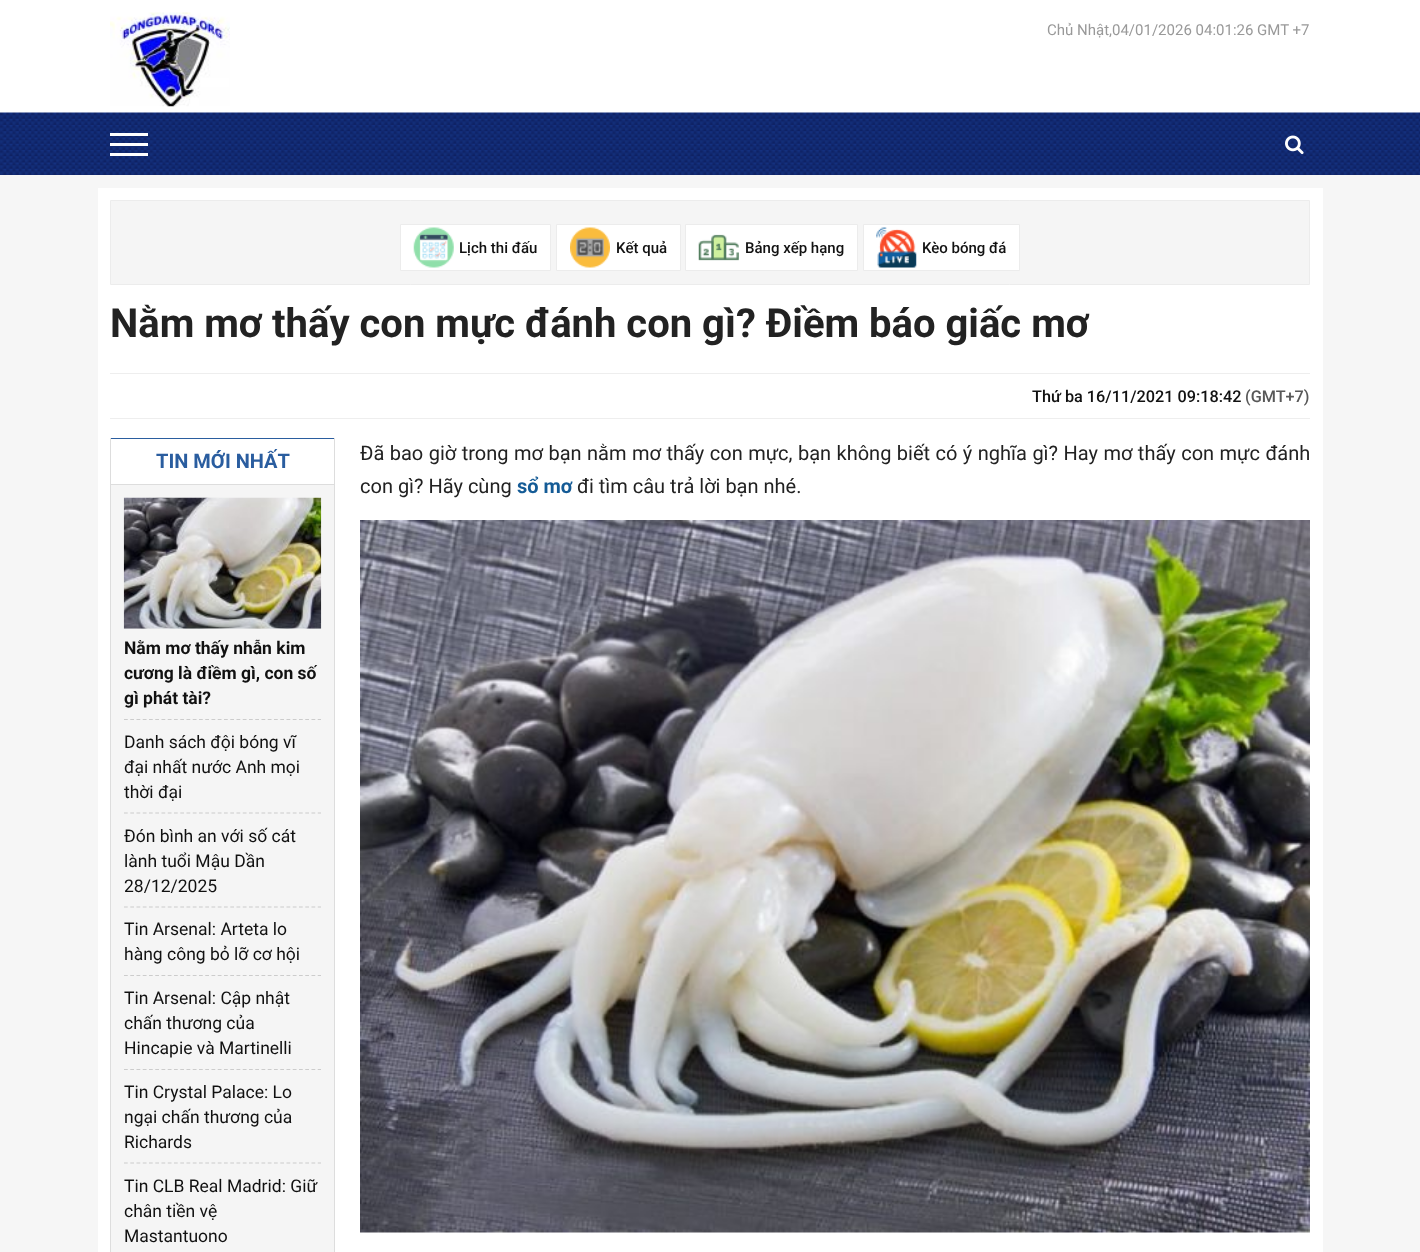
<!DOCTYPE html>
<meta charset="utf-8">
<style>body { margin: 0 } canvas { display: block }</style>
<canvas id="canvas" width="1420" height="1252"></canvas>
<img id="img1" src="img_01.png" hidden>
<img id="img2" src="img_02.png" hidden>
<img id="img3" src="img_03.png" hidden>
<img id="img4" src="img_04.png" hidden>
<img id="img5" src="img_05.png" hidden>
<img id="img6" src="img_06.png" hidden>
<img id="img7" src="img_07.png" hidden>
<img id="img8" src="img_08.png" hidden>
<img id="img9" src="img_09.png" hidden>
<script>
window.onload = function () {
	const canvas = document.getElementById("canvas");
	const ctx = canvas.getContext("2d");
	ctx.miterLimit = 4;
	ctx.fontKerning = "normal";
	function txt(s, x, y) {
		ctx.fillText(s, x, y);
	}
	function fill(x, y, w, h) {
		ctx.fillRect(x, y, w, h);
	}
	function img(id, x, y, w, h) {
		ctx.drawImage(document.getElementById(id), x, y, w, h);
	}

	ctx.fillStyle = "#F6F6F6";
	fill(0, 0, 1420, 1252);
	ctx.fillStyle = "#FFFFFF";
	fill(0, 0, 1420, 113);
	img("img1", 110, 12, 120, 95);
	img("img2", 0, 112, 1420, 63);
	fill(110, 133, 38, 3);
	fill(110, 143, 38, 3);
	fill(110, 153, 38, 3);
	img("img3", 1285, 135, 19, 20);
	fill(98, 188, 1225, 1064);
	ctx.fillStyle = "#F5F5F5";
	ctx.beginPath();
	ctx.rect(110.5, 200.5, 1199, 84);
	ctx.fill();
	ctx.strokeStyle = "#ECECEC";
	ctx.stroke();
	ctx.fillStyle = "#FFFFFF";
	ctx.beginPath();
	ctx.rect(400.5, 224.5, 150, 46);
	ctx.fill();
	ctx.stroke();
	img("img4", 413, 227, 41, 41);
	ctx.beginPath();
	ctx.rect(556.5, 224.5, 124, 46);
	ctx.fill();
	ctx.stroke();
	img("img5", 570, 227, 40, 41);
	ctx.beginPath();
	ctx.rect(685.5, 224.5, 172, 46);
	ctx.fill();
	ctx.stroke();
	img("img6", 698, 234, 41, 27);
	ctx.beginPath();
	ctx.rect(863.5, 224.5, 156, 46);
	ctx.fill();
	ctx.stroke();
	img("img7", 876, 227, 41, 41);
	ctx.fillStyle = "#EEEEEE";
	fill(110, 373, 1200, 1);
	fill(110, 418, 1200, 1);
	ctx.fillStyle = "#2A5D9F";
	fill(110, 438, 225, 1);
	ctx.fillStyle = "#DDDDDD";
	fill(334, 438, 1, 814);
	fill(110, 438, 1, 814);
	fill(111, 484, 223, 1);
	ctx.fillStyle = "#F5F5F5";
	fill(111, 485, 223, 767);
	ctx.beginPath();
	ctx.moveTo(124, 719.5);
	ctx.lineTo(321, 719.5);
	ctx.strokeStyle = "#CCCCCC";
	ctx.lineWidth = 1.2;
	ctx.setLineDash([3.75, 2.5]);
	ctx.stroke();
	img("img8", 123, 497, 199, 132);
	ctx.beginPath();
	ctx.moveTo(124, 813);
	ctx.lineTo(321, 813);
	ctx.stroke();
	ctx.beginPath();
	ctx.moveTo(124, 907);
	ctx.lineTo(321, 907);
	ctx.stroke();
	ctx.beginPath();
	ctx.moveTo(124, 975.5);
	ctx.lineTo(321, 975.5);
	ctx.stroke();
	ctx.beginPath();
	ctx.moveTo(124, 1069.5);
	ctx.lineTo(321, 1069.5);
	ctx.stroke();
	ctx.beginPath();
	ctx.moveTo(124, 1163);
	ctx.lineTo(321, 1163);
	ctx.stroke();
	img("img9", 360, 520, 950, 713);
	ctx.font = "15px Roboto";
	ctx.fillStyle = "#999999";
	txt("Chủ Nhật,04/01/2026 04:01:26 GMT +7", 1047, 35);
	ctx.font = "500 15px Roboto";
	ctx.fillStyle = "#111111";
	txt("Lịch thi đấu", 459, 253);
	txt("Kết quả", 616, 253);
	txt("Bảng xếp hạng", 745, 253);
	txt("Kèo bóng đá", 922, 253);
	ctx.font = "bold 40px Roboto";
	ctx.fillStyle = "#222222";
	txt("Nằm mơ thấy con mực đánh con gì? Điềm báo giấc mơ", 110, 337);
	ctx.font = "500 16.25px Roboto";
	ctx.fillStyle = "#111111";
	txt("Thứ ba 16/11/2021 09:18:42", 1032, 402);
	ctx.fillStyle = "#585858";
	txt("(GMT+7)", 1245, 402);
	ctx.font = "bold 20px Roboto";
	ctx.fillStyle = "#2A5D9F";
	txt("TIN MỚI NHẤT", 156, 468);
	ctx.font = "bold 17.5px Roboto";
	ctx.fillStyle = "#111111";
	txt("Nằm mơ thấy nhẫn kim", 124, 654);
	txt("cương là điềm gì, con số", 124, 679);
	txt("gì phát tài?", 124, 704);
	ctx.font = "17.5px Roboto";
	txt("Danh sách đội bóng vĩ", 124, 748);
	txt("đại nhất nước Anh mọi", 124, 773);
	txt("thời đại", 124, 798);
	txt("Đón bình an với số cát", 124, 842);
	txt("lành tuổi Mậu Dần", 124, 867);
	txt("28/12/2025", 124, 892);
	txt("Tin Arsenal: Arteta lo", 124, 935);
	txt("hàng công bỏ lỡ cơ hội", 124, 960);
	txt("Tin Arsenal: Cập nhật", 124, 1004);
	txt("chấn thương của", 124, 1029);
	txt("Hincapie và Martinelli", 124, 1054);
	txt("Tin Crystal Palace: Lo", 124, 1098);
	txt("ngại chấn thương của", 124, 1123);
	txt("Richards", 124, 1148);
	txt("Tin CLB Real Madrid: Giữ", 124, 1192);
	txt("chân tiền vệ", 124, 1217);
	txt("Mastantuono", 124, 1242);
	ctx.wordSpacing = "0.5px";
	ctx.font = "20px Roboto";
	ctx.fillStyle = "#222222";
	txt("Đã bao giờ trong mơ bạn nằm mơ thấy con mực, bạn không biết có ý nghĩa gì? Hay mơ thấy con mực đánh", 360, 460);
	ctx.wordSpacing = "0px";
	txt("con gì? Hãy cùng", 360, 493);
	ctx.font = "bold 20px Roboto";
	ctx.fillStyle = "#145B96";
	txt("sổ mơ", 517, 493);
	ctx.font = "20px Roboto";
	ctx.fillStyle = "#222222";
	txt("đi tìm câu trả lời bạn nhé.", 577, 493);
};
</script>
